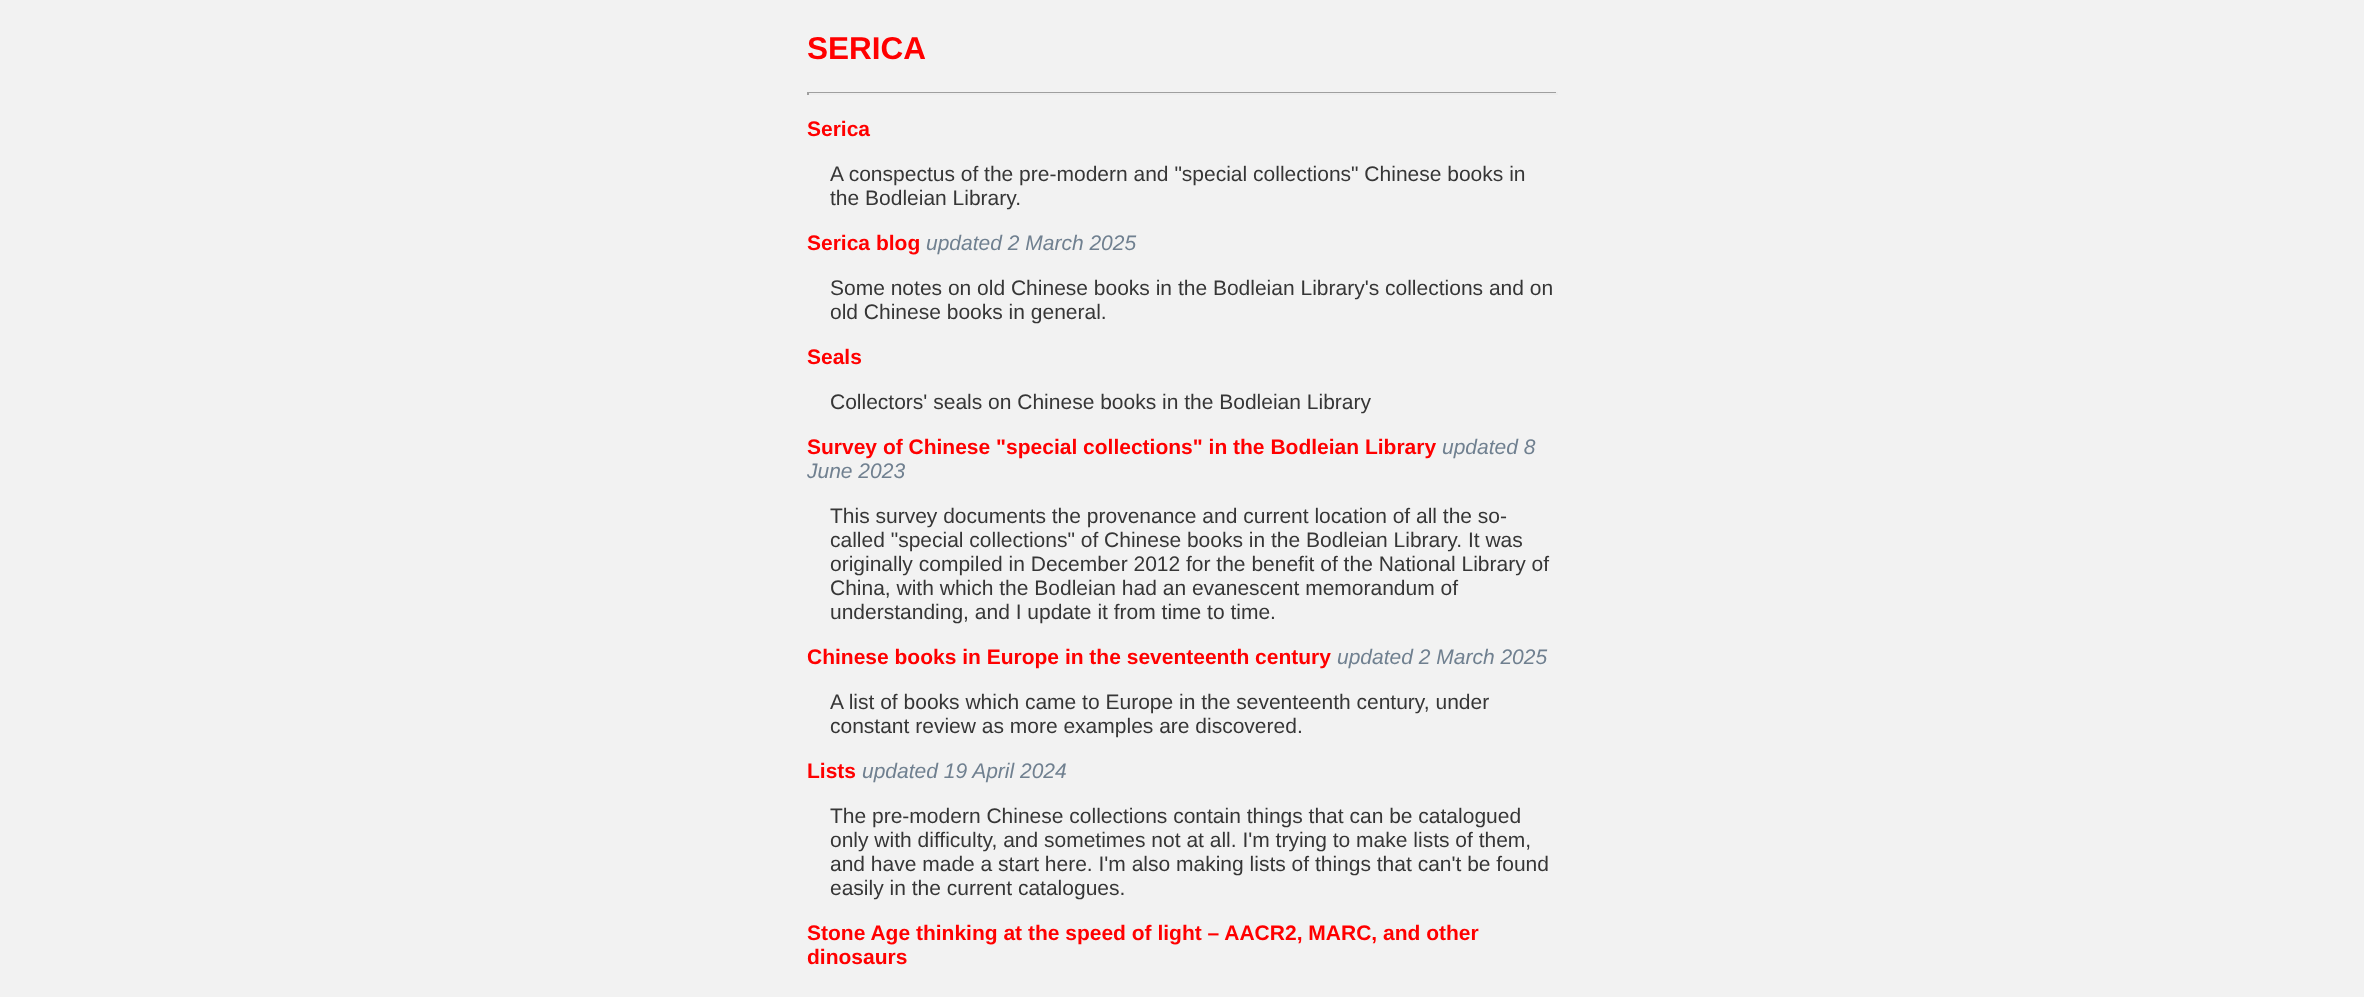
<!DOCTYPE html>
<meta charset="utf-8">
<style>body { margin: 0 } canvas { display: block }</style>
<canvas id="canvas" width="2364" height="997"></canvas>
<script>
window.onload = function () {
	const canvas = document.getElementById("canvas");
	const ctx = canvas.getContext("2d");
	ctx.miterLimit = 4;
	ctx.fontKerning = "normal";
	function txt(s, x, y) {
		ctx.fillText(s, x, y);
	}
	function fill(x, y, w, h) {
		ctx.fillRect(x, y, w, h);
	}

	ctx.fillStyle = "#F2F2F2";
	fill(0, 0, 2364, 997);
	ctx.fillStyle = "#9F9F9F";
	fill(807, 92, 750, 1);
	ctx.fillStyle = "#EEEEEE";
	fill(1556, 92, 2, 3);
	fill(807, 93, 750, 2);
	ctx.fillStyle = "#9F9F9F";
	fill(807, 92, 2, 3);
	ctx.font = "bold 31.5px Liberation Sans";
	ctx.fillStyle = "#FF0000";
	txt("SERICA", 807, 59);
	ctx.font = "bold 21px Liberation Sans";
	txt("Serica", 807, 136);
	ctx.font = "21px Liberation Sans";
	ctx.fillStyle = "#363636";
	txt("A conspectus of the pre-modern and \"special collections\" Chinese books in", 830, 181);
	txt("the Bodleian Library.", 830, 205);
	ctx.font = "bold 21px Liberation Sans";
	ctx.fillStyle = "#FF0000";
	txt("Serica blog", 807, 250);
	ctx.font = "italic 21px Liberation Sans";
	ctx.fillStyle = "#708090";
	txt("updated 2 March 2025", 926, 250);
	ctx.font = "21px Liberation Sans";
	ctx.fillStyle = "#363636";
	txt("Some notes on old Chinese books in the Bodleian Library's collections and on", 830, 295);
	txt("old Chinese books in general.", 830, 319);
	ctx.font = "bold 21px Liberation Sans";
	ctx.fillStyle = "#FF0000";
	txt("Seals", 807, 364);
	ctx.font = "21px Liberation Sans";
	ctx.fillStyle = "#363636";
	txt("Collectors' seals on Chinese books in the Bodleian Library", 830, 409);
	ctx.font = "bold 21px Liberation Sans";
	ctx.fillStyle = "#FF0000";
	txt("Survey of Chinese \"special collections\" in the Bodleian Library", 807, 454);
	ctx.font = "italic 21px Liberation Sans";
	ctx.fillStyle = "#708090";
	txt("updated 8", 1442, 454);
	txt("June 2023", 807, 478);
	ctx.font = "21px Liberation Sans";
	ctx.fillStyle = "#363636";
	txt("This survey documents the provenance and current location of all the so-", 830, 523);
	txt("called \"special collections\" of Chinese books in the Bodleian Library. It was", 830, 547);
	txt("originally compiled in December 2012 for the benefit of the National Library of", 830, 571);
	txt("China, with which the Bodleian had an evanescent memorandum of", 830, 595);
	txt("understanding, and I update it from time to time.", 830, 619);
	ctx.font = "bold 21px Liberation Sans";
	ctx.fillStyle = "#FF0000";
	txt("Chinese books in Europe in the seventeenth century", 807, 664);
	ctx.font = "italic 21px Liberation Sans";
	ctx.fillStyle = "#708090";
	txt("updated 2 March 2025", 1337, 664);
	ctx.font = "21px Liberation Sans";
	ctx.fillStyle = "#363636";
	txt("A list of books which came to Europe in the seventeenth century, under", 830, 709);
	txt("constant review as more examples are discovered.", 830, 733);
	ctx.font = "bold 21px Liberation Sans";
	ctx.fillStyle = "#FF0000";
	txt("Lists", 807, 778);
	ctx.font = "italic 21px Liberation Sans";
	ctx.fillStyle = "#708090";
	txt("updated 19 April 2024", 862, 778);
	ctx.font = "21px Liberation Sans";
	ctx.fillStyle = "#363636";
	txt("The pre-modern Chinese collections contain things that can be catalogued", 830, 823);
	txt("only with difficulty, and sometimes not at all. I'm trying to make lists of them,", 830, 847);
	txt("and have made a start here. I'm also making lists of things that can't be found", 830, 871);
	txt("easily in the current catalogues.", 830, 895);
	ctx.font = "bold 21px Liberation Sans";
	ctx.fillStyle = "#FF0000";
	txt("Stone Age thinking at the speed of light – AACR2, MARC, and other", 807, 940);
	txt("dinosaurs", 807, 964);
};
</script>
